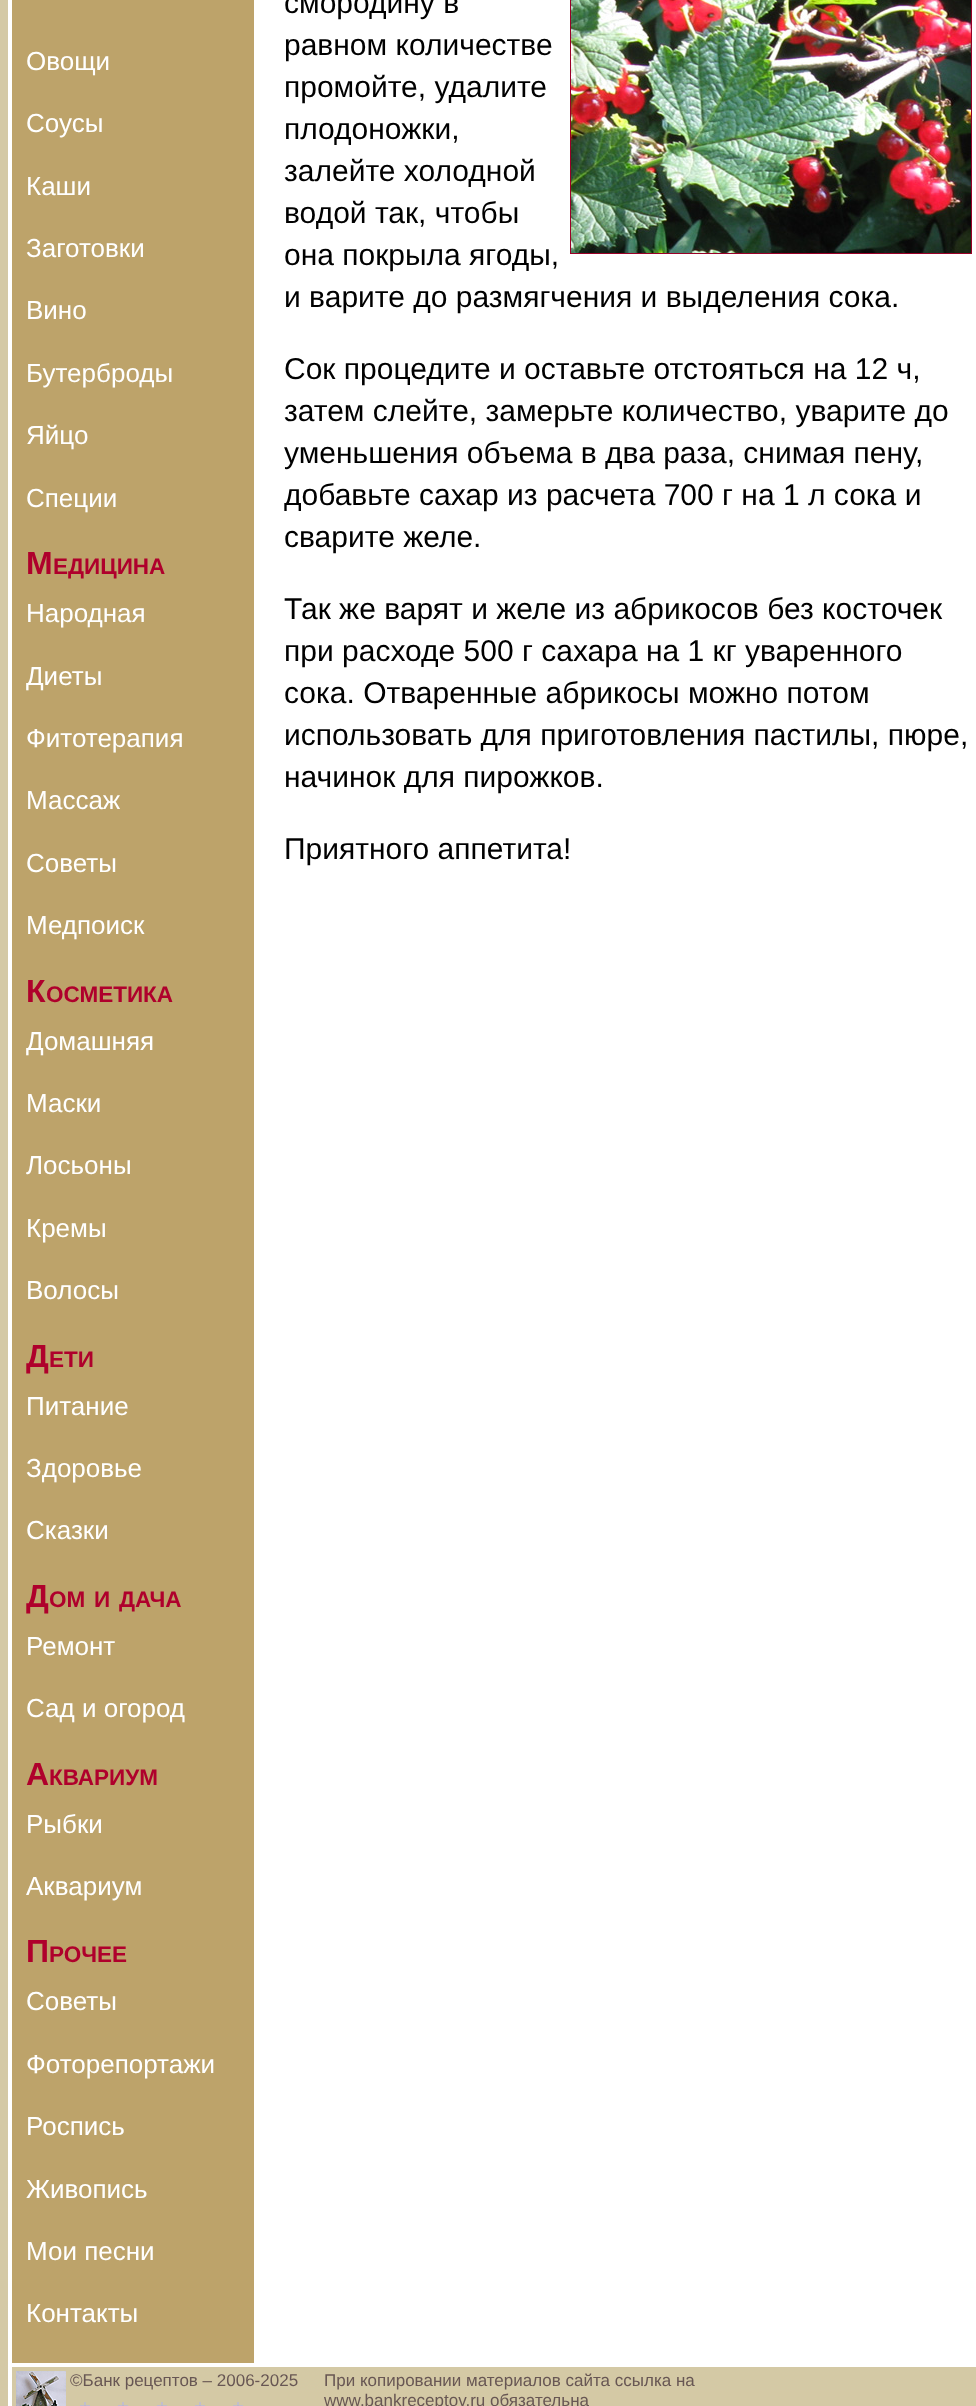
<!DOCTYPE html>
<meta charset="utf-8">
<style>body { margin: 0 } canvas { display: block }</style>
<canvas id="canvas" width="976" height="2406"></canvas>
<img id="img1" src="img_01.png" hidden>
<img id="img2" src="img_02.png" hidden>
<img id="img3" src="img_03.png" hidden>
<script>
window.onload = function () {
	const canvas = document.getElementById("canvas");
	const ctx = canvas.getContext("2d");
	ctx.miterLimit = 4;
	ctx.fontKerning = "normal";
	function txt(s, x, y) {
		ctx.fillText(s, x, y);
	}
	function fill(x, y, w, h) {
		ctx.fillRect(x, y, w, h);
	}
	function img(id, x, y, w, h) {
		ctx.drawImage(document.getElementById(id), x, y, w, h);
	}

	ctx.fillStyle = "#FFFFFF";
	fill(0, 0, 976, 2406);
	ctx.fillStyle = "#D4C9A5";
	fill(0, 0, 8, 2406);
	ctx.fillStyle = "#BDA36A";
	fill(12, 0, 242, 2363);
	ctx.strokeStyle = "#9A0027";
	ctx.strokeRect(570.5, -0.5, 401, 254);
	img("img1", 571, 0, 400, 253);
	ctx.fillStyle = "#D4C9A5";
	fill(12, 2367, 964, 39);
	img("img2", 16, 2371, 50, 35);
	img("img3", 80, 2402, 10, 4);
	img("img3", 118, 2402, 10, 4);
	img("img3", 157, 2402, 10, 4);
	img("img3", 195, 2402, 10, 4);
	img("img3", 233, 2402, 10, 4);
	ctx.font = "26px Liberation Sans";
	ctx.fillStyle = "#FFFFFF";
	txt("Овощи", 26, 70);
	txt("Соусы", 26, 132);
	txt("Каши", 26, 195);
	txt("Заготовки", 26, 257);
	txt("Вино", 26, 319);
	txt("Бутерброды", 26, 382);
	txt("Яйцо", 26, 444);
	txt("Специи", 26, 507);
	ctx.font = "bold 32px Liberation Sans";
	ctx.fillStyle = "#AF002C";
	txt("М", 26, 574);
	ctx.font = "bold 22.5px Liberation Sans";
	txt("ЕДИЦИНА", 53, 574);
	ctx.font = "26px Liberation Sans";
	ctx.fillStyle = "#FFFFFF";
	txt("Народная", 26, 622);
	txt("Диеты", 26, 685);
	txt("Фитотерапия", 26, 747);
	txt("Массаж", 26, 809);
	txt("Советы", 26, 872);
	txt("Медпоиск", 26, 934);
	ctx.font = "bold 32px Liberation Sans";
	ctx.fillStyle = "#AF002C";
	txt("К", 26, 1002);
	ctx.font = "bold 22.5px Liberation Sans";
	txt("ОСМЕТИКА", 46, 1002);
	ctx.font = "26px Liberation Sans";
	ctx.fillStyle = "#FFFFFF";
	txt("Домашняя", 26, 1050);
	txt("Маски", 26, 1112);
	txt("Лосьоны", 26, 1174);
	txt("Кремы", 26, 1237);
	txt("Волосы", 26, 1299);
	ctx.font = "bold 32px Liberation Sans";
	ctx.fillStyle = "#AF002C";
	txt("Д", 26, 1367);
	ctx.font = "bold 22.5px Liberation Sans";
	txt("ЕТИ", 49, 1367);
	ctx.font = "26px Liberation Sans";
	ctx.fillStyle = "#FFFFFF";
	txt("Питание", 26, 1415);
	txt("Здоровье", 26, 1477);
	txt("Сказки", 26, 1539);
	ctx.font = "bold 32px Liberation Sans";
	ctx.fillStyle = "#AF002C";
	txt("Д", 26, 1607);
	ctx.font = "bold 22.5px Liberation Sans";
	txt("ОМ", 49, 1607);
	txt("И", 94, 1607);
	txt("ДАЧА", 119, 1607);
	ctx.font = "26px Liberation Sans";
	ctx.fillStyle = "#FFFFFF";
	txt("Ремонт", 26, 1655);
	txt("Сад и огород", 26, 1717);
	ctx.font = "bold 32px Liberation Sans";
	ctx.fillStyle = "#AF002C";
	txt("А", 26, 1785);
	ctx.font = "bold 22.5px Liberation Sans";
	txt("КВАРИУМ", 49, 1785);
	ctx.font = "26px Liberation Sans";
	ctx.fillStyle = "#FFFFFF";
	txt("Рыбки", 26, 1833);
	txt("Аквариум", 26, 1895);
	ctx.font = "bold 32px Liberation Sans";
	ctx.fillStyle = "#AF002C";
	txt("П", 26, 1962);
	ctx.font = "bold 22.5px Liberation Sans";
	txt("РОЧЕЕ", 49, 1962);
	ctx.font = "26px Liberation Sans";
	ctx.fillStyle = "#FFFFFF";
	txt("Советы", 26, 2010);
	txt("Фоторепортажи", 26, 2073);
	txt("Роспись", 26, 2135);
	txt("Живопись", 26, 2198);
	txt("Мои песни", 26, 2260);
	txt("Контакты", 26, 2322);
	ctx.font = "30px Liberation Sans";
	ctx.fillStyle = "#000000";
	txt("смородину в", 284, 13);
	txt("равном количестве", 284, 55);
	txt("промойте, удалите", 284, 97);
	txt("плодоножки,", 284, 139);
	txt("залейте холодной", 284, 181);
	txt("водой так, чтобы", 284, 223);
	txt("она покрыла ягоды,", 284, 265);
	txt("и варите до размягчения и выделения сока.", 284, 307);
	txt("Сок процедите и оставьте отстояться на 12 ч,", 284, 379);
	txt("затем слейте, замерьте количество, уварите до", 284, 421);
	txt("уменьшения объема в два раза, снимая пену,", 284, 463);
	txt("добавьте сахар из расчета 700 г на 1 л сока и", 284, 505);
	txt("сварите желе.", 284, 547);
	txt("Так же варят и желе из абрикосов без косточек", 284, 619);
	txt("при расходе 500 г сахара на 1 кг уваренного", 284, 661);
	txt("сока. Отваренные абрикосы можно потом", 284, 703);
	txt("использовать для приготовления пастилы, пюре,", 284, 745);
	txt("начинок для пирожков.", 284, 787);
	txt("Приятного аппетита!", 284, 859);
	ctx.font = "17px Liberation Sans";
	ctx.fillStyle = "#685754";
	txt("©Банк рецептов – 2006-2025", 70, 2386);
	txt("При копировании материалов сайта ссылка на", 324, 2386);
	txt("www.bankreceptov.ru обязательна", 324, 2406);
};
</script>
